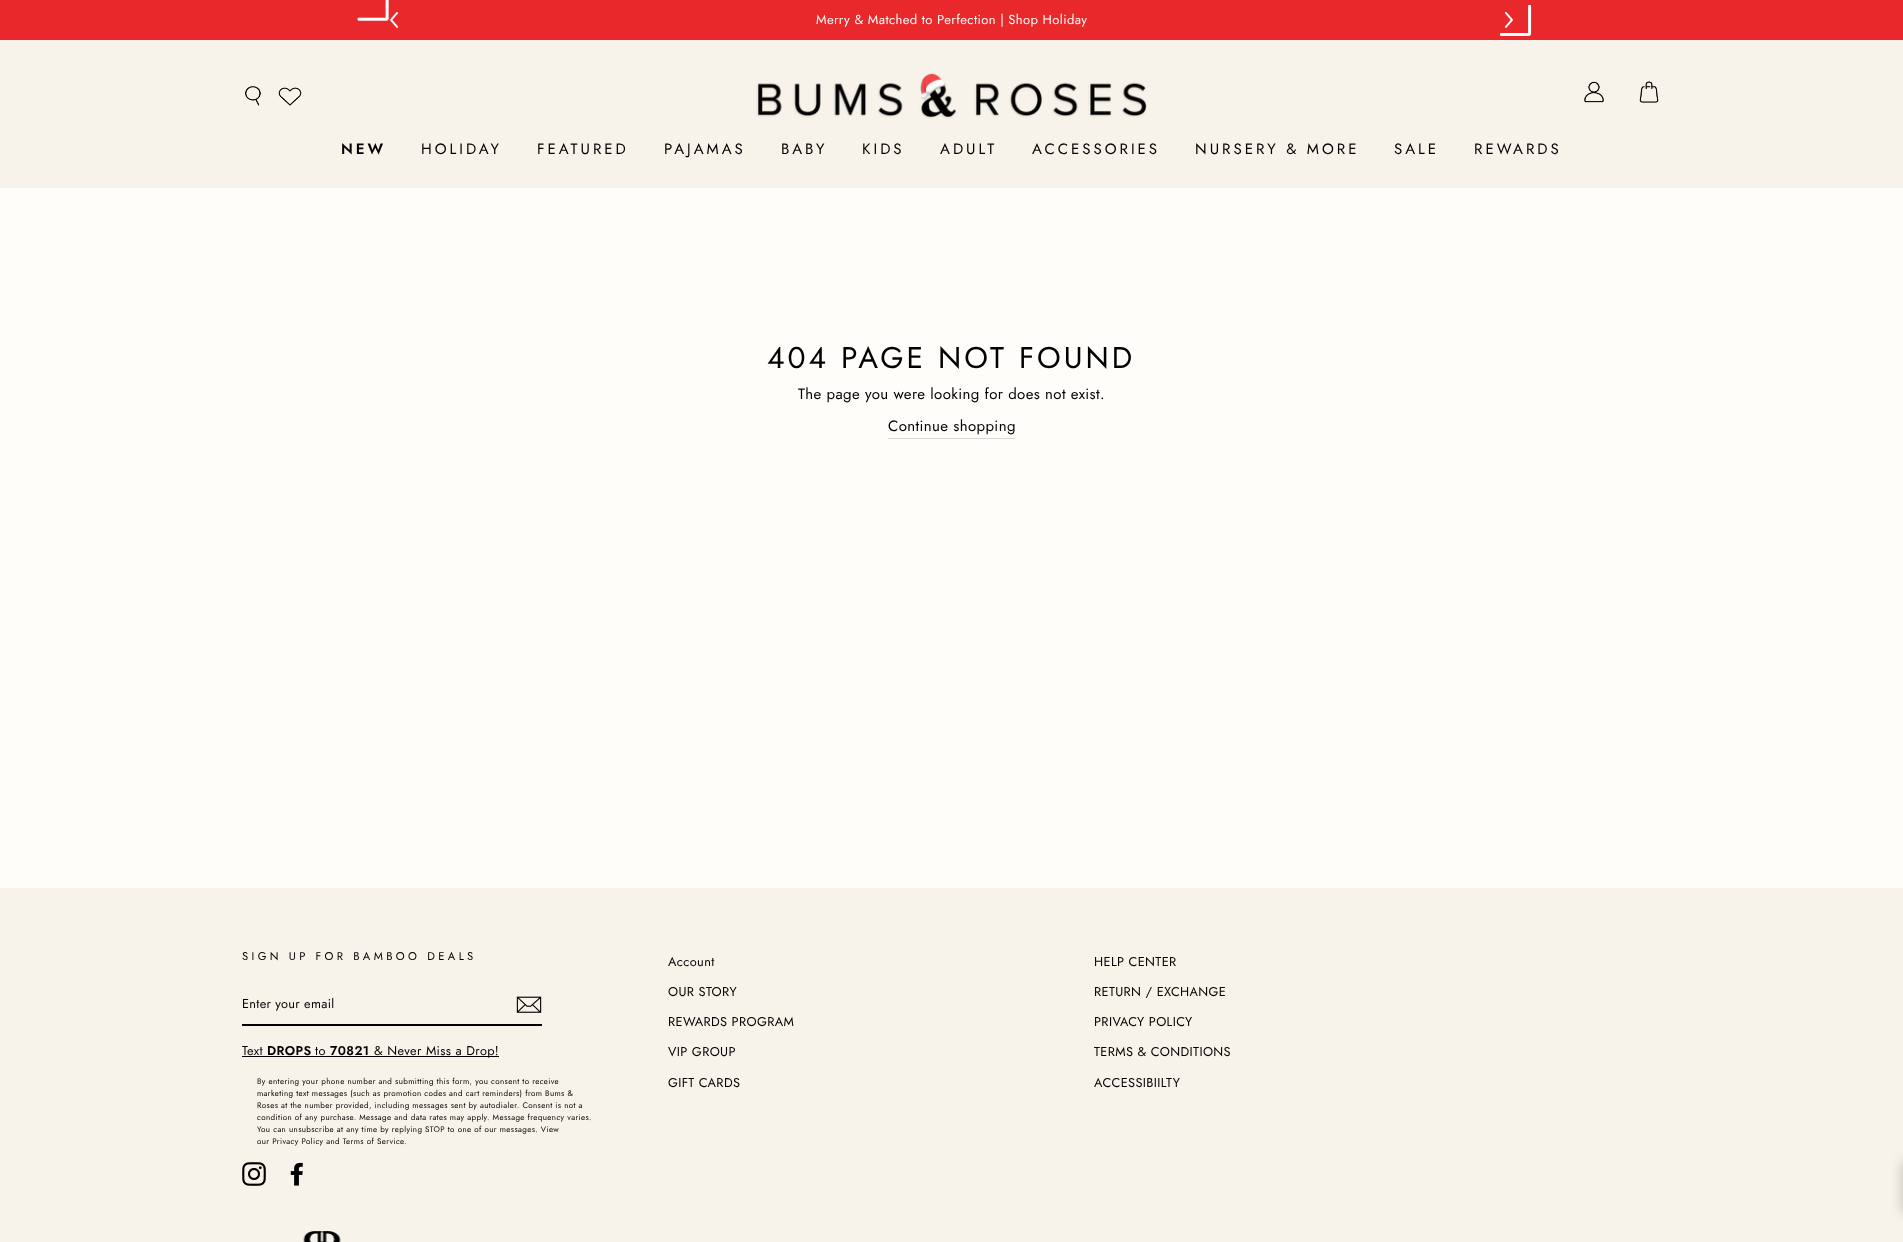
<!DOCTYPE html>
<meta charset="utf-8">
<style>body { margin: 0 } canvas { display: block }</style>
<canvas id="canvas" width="1903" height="1242"></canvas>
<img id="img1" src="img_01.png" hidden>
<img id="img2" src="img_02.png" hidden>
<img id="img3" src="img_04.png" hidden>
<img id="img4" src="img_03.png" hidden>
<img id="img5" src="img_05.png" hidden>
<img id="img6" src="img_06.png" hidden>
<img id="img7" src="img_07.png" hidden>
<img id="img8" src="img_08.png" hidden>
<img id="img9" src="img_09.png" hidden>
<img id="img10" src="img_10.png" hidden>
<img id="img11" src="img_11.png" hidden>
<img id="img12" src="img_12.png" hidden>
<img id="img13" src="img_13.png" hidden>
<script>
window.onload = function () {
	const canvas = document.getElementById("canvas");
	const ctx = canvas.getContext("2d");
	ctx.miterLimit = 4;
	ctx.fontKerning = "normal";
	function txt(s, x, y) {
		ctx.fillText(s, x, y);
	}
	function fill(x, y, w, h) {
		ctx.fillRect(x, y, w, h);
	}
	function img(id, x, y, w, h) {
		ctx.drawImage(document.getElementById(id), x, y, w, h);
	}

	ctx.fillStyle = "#FEFDFA";
	fill(0, 0, 1903, 1242);
	ctx.fillStyle = "#E9282C";
	fill(0, 0, 1903, 40);
	img("img1", 357, 0, 32, 21);
	img("img2", 390, 12, 9, 16);
	img("img3", 1504, 12, 9, 16);
	img("img4", 1499, 4, 33, 32);
	ctx.fillStyle = "#F7F2EA";
	fill(0, 40, 1903, 148);
	img("img5", 245, 86, 16, 20);
	img("img6", 278, 87, 24, 19);
	img("img7", 756, 73, 391, 46);
	img("img8", 1584, 81, 20, 22);
	img("img9", 1639, 81, 20, 22);
	ctx.fillStyle = "#D8D7D5";
	fill(888, 438, 127, 1);
	ctx.fillStyle = "#F7F2EA";
	fill(0, 888, 1903, 354);
	ctx.fillStyle = "#000000";
	fill(242, 1024, 300, 2);
	img("img10", 516, 996, 26, 17);
	fill(242, 1056, 257, 1);
	img("img11", 242, 1162, 24, 24);
	img("img12", 290, 1162, 13, 24);
	img("img13", 303, 1231, 38, 11);
	ctx.fillStyle = "rgba(117, 117, 117, 0.5)";
	ctx.filter = "blur(7px)";
	ctx.beginPath();
	ctx.rect(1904, 1162, 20, 50);
	ctx.fill();
	ctx.filter = "none";
	ctx.letterSpacing = "0.38px";
	ctx.font = "13px Jost";
	ctx.fillStyle = "#FEFDFA";
	txt("Merry & Matched to Perfection | Shop Holiday", 816, 24);
	ctx.letterSpacing = "3px";
	ctx.font = "600 15px Jost";
	ctx.fillStyle = "#000000";
	txt("NEW", 341, 154);
	ctx.font = "15px Jost";
	txt("HOLIDAY", 421, 154);
	txt("FEATURED", 537, 154);
	txt("PAJAMAS", 664, 154);
	txt("BABY", 781, 154);
	txt("KIDS", 862, 154);
	txt("ADULT", 940, 154);
	txt("ACCESSORIES", 1032, 154);
	txt("NURSERY & MORE", 1195, 154);
	txt("SALE", 1394, 154);
	txt("REWARDS", 1474, 154);
	ctx.font = "30px Jost";
	txt("404 PAGE NOT FOUND", 767, 368);
	ctx.letterSpacing = "0.38px";
	ctx.font = "15px Jost";
	txt("The page you were looking for does not exist.", 798, 399);
	txt("Continue shopping", 888, 431);
	ctx.letterSpacing = "3.4px";
	ctx.font = "11.25px Jost";
	txt("SIGN UP FOR BAMBOO DEALS", 242, 960);
	ctx.letterSpacing = "0.3px";
	ctx.font = "12.75px Jost";
	txt("Enter your email", 242, 1008);
	ctx.letterSpacing = "0.38px";
	txt("Text", 242, 1055);
	ctx.font = "600 12.75px Jost";
	txt("DROPS", 267, 1055);
	ctx.font = "12.75px Jost";
	txt("to", 315, 1055);
	ctx.font = "600 12.75px Jost";
	txt("70821", 330, 1055);
	ctx.font = "12.75px Jost";
	txt("& Never Miss a Drop!", 374, 1055);
	ctx.font = "8px Jost";
	txt("By entering your phone number and submitting this form, you consent to receive", 257, 1084);
	txt("marketing text messages (such as promotion codes and cart reminders) from Bums &", 257, 1096);
	txt("Roses at the number provided, including messages sent by autodialer. Consent is not a", 257, 1108);
	txt("condition of any purchase. Message and data rates may apply. Message frequency varies.", 257, 1120);
	txt("You can unsubscribe at any time by replying STOP to one of our messages. View", 257, 1132);
	txt("our Privacy Policy and Terms of Service.", 257, 1144);
	ctx.font = "12.75px Jost";
	txt("Account", 668, 966);
	txt("OUR STORY", 668, 996);
	txt("REWARDS PROGRAM", 668, 1026);
	txt("VIP GROUP", 668, 1056);
	txt("GIFT CARDS", 668, 1087);
	txt("HELP CENTER", 1094, 966);
	txt("RETURN / EXCHANGE", 1094, 996);
	txt("PRIVACY POLICY", 1094, 1026);
	txt("TERMS & CONDITIONS", 1094, 1056);
	txt("ACCESSIBIILTY", 1094, 1087);
};
</script>
